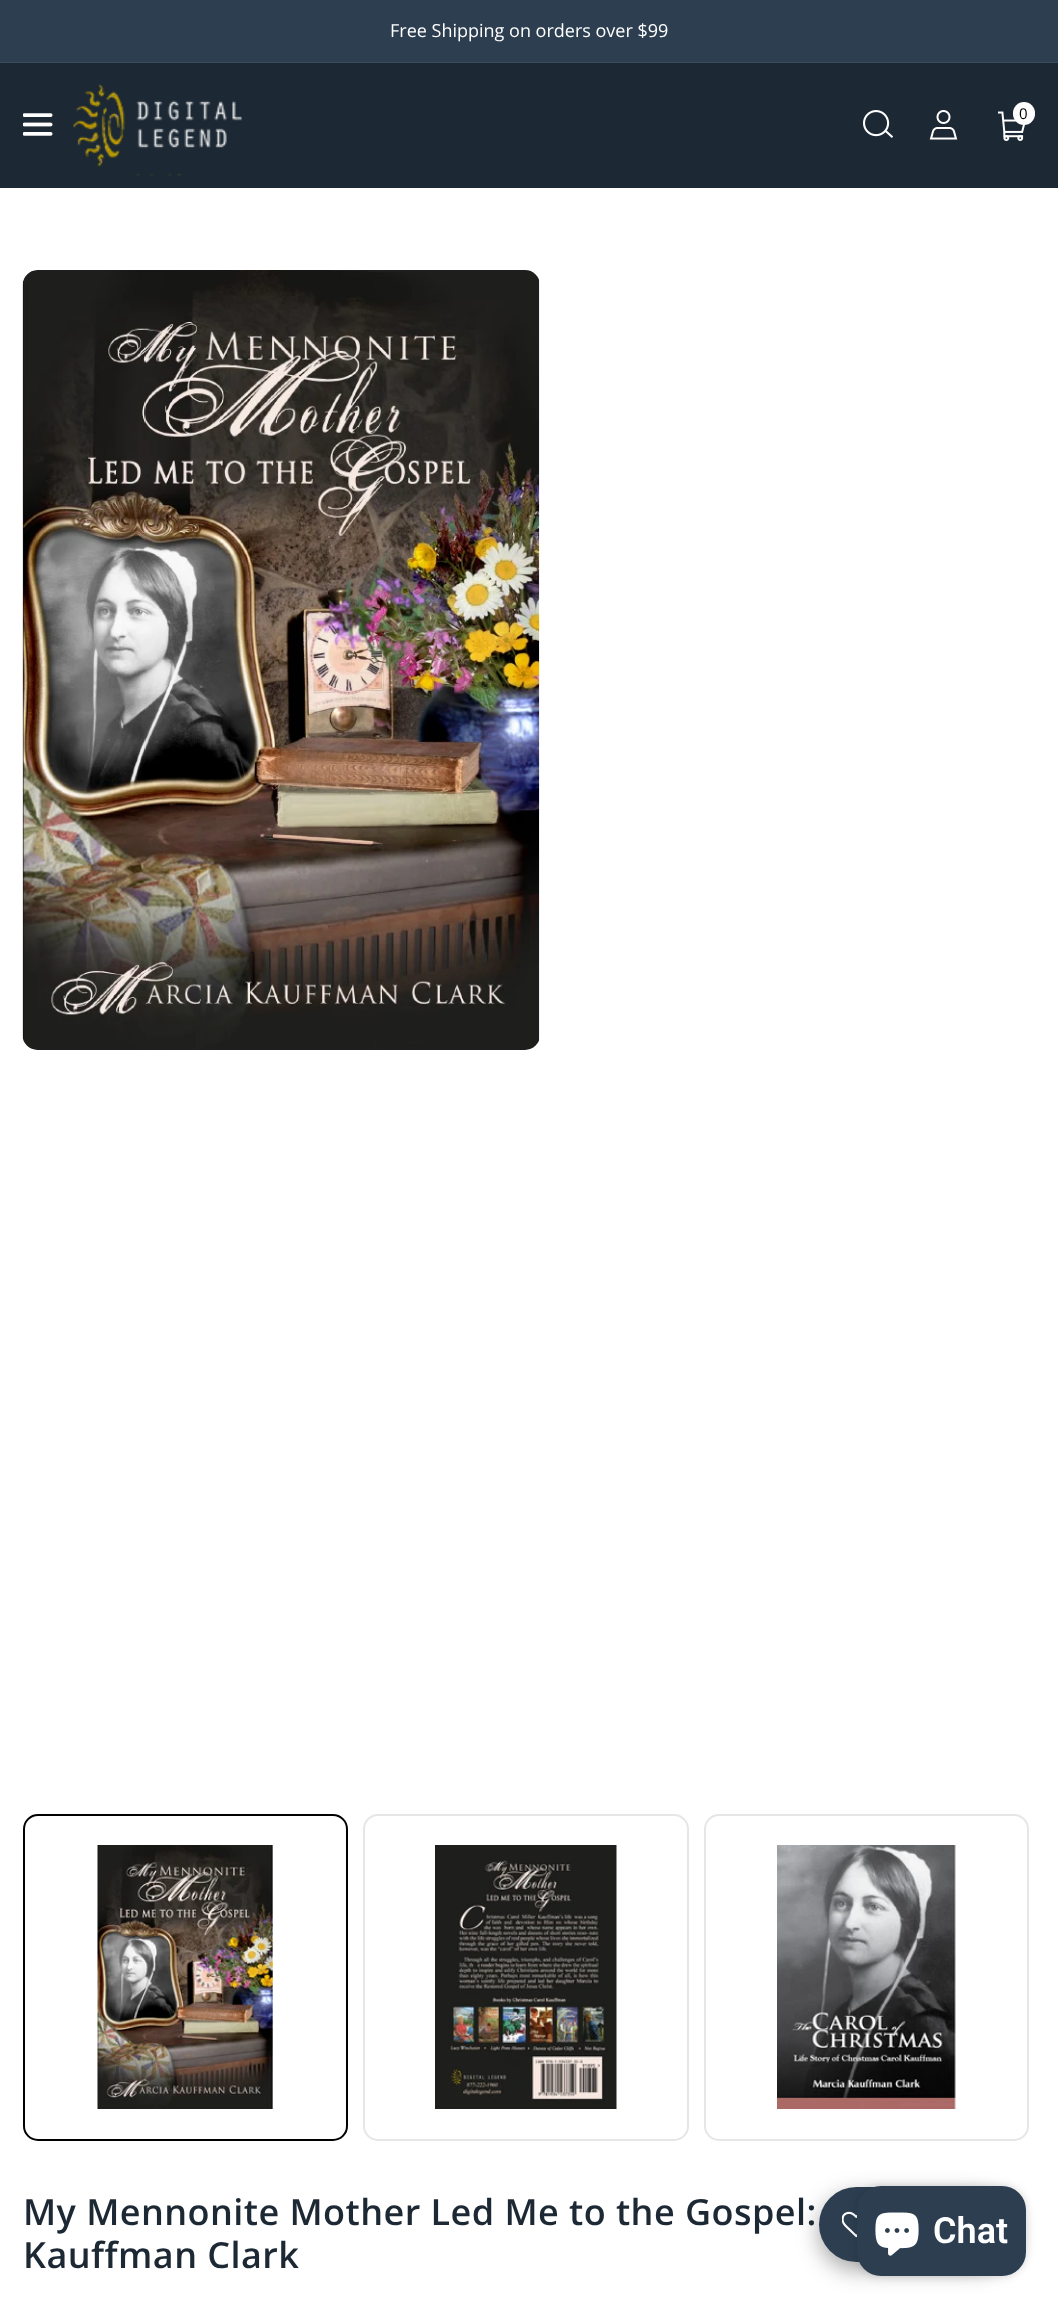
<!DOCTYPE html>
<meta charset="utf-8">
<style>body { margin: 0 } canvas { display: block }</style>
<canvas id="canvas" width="1058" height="2307"></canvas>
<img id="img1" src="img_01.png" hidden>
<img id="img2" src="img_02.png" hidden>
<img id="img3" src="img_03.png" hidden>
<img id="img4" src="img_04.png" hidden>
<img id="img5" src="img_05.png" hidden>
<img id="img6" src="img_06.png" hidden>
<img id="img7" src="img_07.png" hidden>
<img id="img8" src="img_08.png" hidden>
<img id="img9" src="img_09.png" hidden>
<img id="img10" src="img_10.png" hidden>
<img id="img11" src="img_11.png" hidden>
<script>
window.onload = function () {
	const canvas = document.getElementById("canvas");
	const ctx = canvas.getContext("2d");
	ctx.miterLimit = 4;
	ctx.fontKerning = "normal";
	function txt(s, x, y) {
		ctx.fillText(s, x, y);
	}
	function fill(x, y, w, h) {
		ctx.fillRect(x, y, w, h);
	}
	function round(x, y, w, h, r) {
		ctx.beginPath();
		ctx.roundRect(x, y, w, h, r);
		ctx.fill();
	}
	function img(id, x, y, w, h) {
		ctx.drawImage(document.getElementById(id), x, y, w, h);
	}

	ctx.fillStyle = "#FFFFFF";
	fill(0, 0, 1058, 2307);
	ctx.fillStyle = "#2C3E50";
	fill(0, 0, 1058, 62);
	ctx.fillStyle = "#3B4C5C";
	fill(0, 62, 1058, 1);
	ctx.fillStyle = "#1C2833";
	fill(0, 63, 1058, 125);
	img("img1", 23, 113, 30, 23);
	img("img2", 73, 84, 169, 92);
	img("img3", 863, 110, 30, 28);
	img("img4", 929, 110, 29, 30);
	img("img5", 998, 111, 28, 30);
	ctx.fillStyle = "#FFFFFF";
	round(1013, 102, 22, 23, 11);
	img("img6", 22, 270, 518, 780);
	ctx.beginPath();
	ctx.roundRect(24, 1815, 323, 325, 14);
	ctx.strokeStyle = "#000000";
	ctx.lineWidth = 2;
	ctx.stroke();
	img("img7", 97, 1845, 176, 264);
	ctx.beginPath();
	ctx.roundRect(364, 1815, 324, 325, 14);
	ctx.strokeStyle = "#E6E6E6";
	ctx.stroke();
	img("img8", 435, 1845, 182, 264);
	ctx.beginPath();
	ctx.roundRect(705, 1815, 323, 325, 14);
	ctx.stroke();
	img("img9", 777, 1845, 179, 264);
	ctx.fillStyle = "rgba(0, 0, 0, 0.35)";
	ctx.filter = "blur(11px)";
	ctx.beginPath();
	ctx.roundRect(819, 2195, 195, 75, 37.5);
	ctx.fill();
	ctx.filter = "none";
	ctx.fillStyle = "#2C3E50";
	round(819, 2187, 195, 75, 37.5);
	img("img10", 842, 2211, 15, 27);
	ctx.fillStyle = "rgba(0, 0, 0, 0.15)";
	ctx.filter = "blur(4px)";
	ctx.beginPath();
	ctx.roundRect(857, 2186, 169, 90, 24);
	ctx.fill();
	ctx.filter = "none";
	ctx.fillStyle = "#2C3E50";
	round(857, 2186, 169, 90, 24);
	img("img11", 875, 2212, 44, 44);
	ctx.font = "18px Open Sans";
	ctx.fillStyle = "#FFFFFF";
	txt("Free Shipping on orders over $99", 390, 37);
	ctx.letterSpacing = "0.45px";
	ctx.font = "15px Open Sans";
	ctx.fillStyle = "#000000";
	txt("0", 1019, 119);
	ctx.font = "600 36px Open Sans";
	ctx.fillStyle = "#1C2833";
	txt("My Mennonite Mother Led Me to the Gospel:", 23, 2225);
	txt("Kauffman Clark", 23, 2268);
	ctx.letterSpacing = "0px";
	ctx.font = "600 36px Roboto";
	ctx.fillStyle = "#FFFFFF";
	txt("Chat", 933, 2243);
};
</script>
